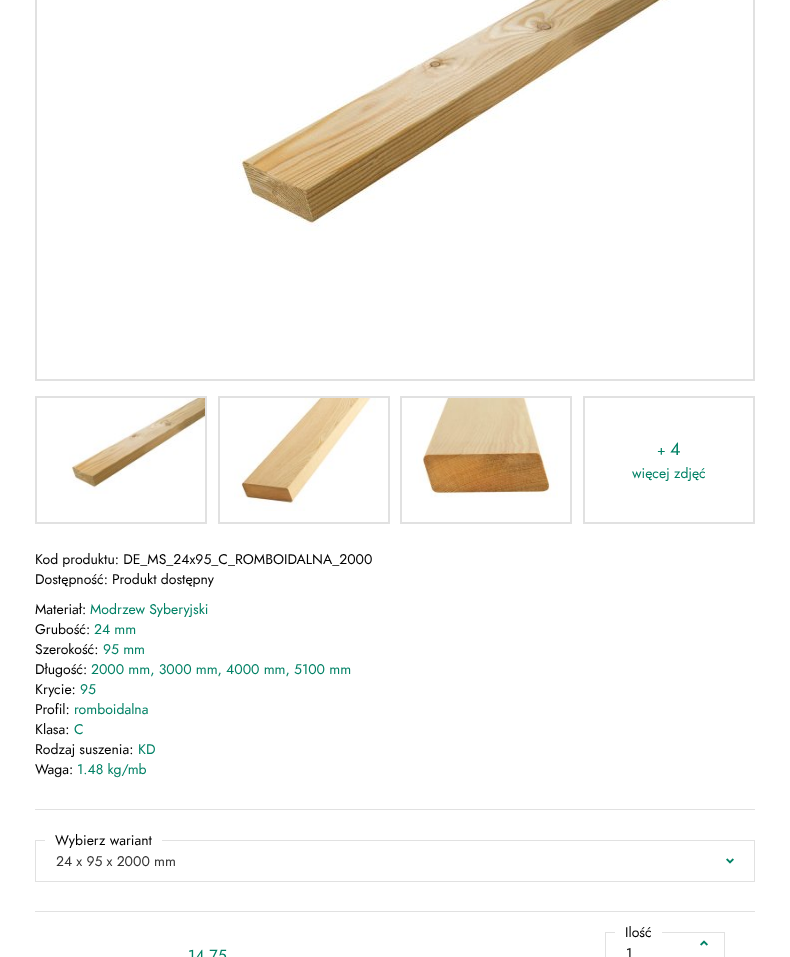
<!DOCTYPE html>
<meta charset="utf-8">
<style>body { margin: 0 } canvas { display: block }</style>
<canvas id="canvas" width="790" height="957"></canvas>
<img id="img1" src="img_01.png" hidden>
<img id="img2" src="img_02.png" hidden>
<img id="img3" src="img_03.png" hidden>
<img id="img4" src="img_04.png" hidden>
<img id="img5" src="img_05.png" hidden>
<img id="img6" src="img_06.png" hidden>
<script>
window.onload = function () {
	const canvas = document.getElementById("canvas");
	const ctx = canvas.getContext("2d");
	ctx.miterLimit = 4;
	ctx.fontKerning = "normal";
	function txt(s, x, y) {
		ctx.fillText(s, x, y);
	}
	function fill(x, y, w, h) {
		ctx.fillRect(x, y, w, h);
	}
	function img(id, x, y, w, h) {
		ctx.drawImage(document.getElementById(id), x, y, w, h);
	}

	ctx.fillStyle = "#FFFFFF";
	fill(0, 0, 790, 957);
	ctx.strokeStyle = "#E1E1E1";
	ctx.lineWidth = 2;
	ctx.strokeRect(36, -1, 718, 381);
	img("img1", 232, 0, 439, 231);
	ctx.strokeRect(36, 397, 170, 126);
	img("img2", 69, 398, 136, 96);
	ctx.strokeRect(219, 397, 170, 126);
	img("img3", 234, 398, 142, 113);
	ctx.strokeRect(401, 397, 170, 126);
	img("img4", 416, 398, 142, 100);
	ctx.strokeRect(584, 397, 170, 126);
	ctx.fillStyle = "#E1E1E1";
	fill(35, 809, 720, 1);
	ctx.lineWidth = 1;
	ctx.strokeRect(35.5, 840.5, 719, 41);
	ctx.fillStyle = "#FFFFFF";
	fill(45, 840, 117, 1);
	img("img5", 726, 858, 8, 6);
	ctx.fillStyle = "#E1E1E1";
	fill(35, 911, 720, 1);
	ctx.strokeRect(605.5, 932.5, 119, 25);
	ctx.fillStyle = "#FFFFFF";
	fill(615, 932, 47, 1);
	img("img6", 700, 940, 8, 6);
	ctx.font = "14px Jost";
	ctx.fillStyle = "#008165";
	txt("+", 657, 455);
	ctx.font = "18px Jost";
	txt("4", 670, 455);
	ctx.font = "14px Jost";
	txt("więcej zdjęć", 632, 478);
	ctx.fillStyle = "#000000";
	txt("Kod produktu: DE_MS_24x95_C_ROMBOIDALNA_2000", 35, 564);
	txt("Dostępność: Produkt dostępny", 35, 584);
	txt("Materiał:", 35, 614);
	ctx.fillStyle = "#008165";
	txt("Modrzew Syberyjski", 90, 614);
	ctx.fillStyle = "#000000";
	txt("Grubość:", 35, 634);
	ctx.fillStyle = "#008165";
	txt("24 mm", 94, 634);
	ctx.fillStyle = "#000000";
	txt("Szerokość:", 35, 654);
	ctx.fillStyle = "#008165";
	txt("95 mm", 103, 654);
	ctx.fillStyle = "#000000";
	txt("Długość:", 35, 674);
	ctx.fillStyle = "#008165";
	txt("2000 mm, 3000 mm, 4000 mm, 5100 mm", 91, 674);
	ctx.fillStyle = "#000000";
	txt("Krycie:", 35, 694);
	ctx.fillStyle = "#008165";
	txt("95", 80, 694);
	ctx.fillStyle = "#000000";
	txt("Profil:", 35, 714);
	ctx.fillStyle = "#008165";
	txt("romboidalna", 74, 714);
	ctx.fillStyle = "#000000";
	txt("Klasa:", 35, 734);
	ctx.fillStyle = "#008165";
	txt("C", 74, 734);
	ctx.fillStyle = "#000000";
	txt("Rodzaj suszenia:", 35, 754);
	ctx.fillStyle = "#008165";
	txt("KD", 138, 754);
	ctx.fillStyle = "#000000";
	txt("Waga:", 35, 774);
	ctx.fillStyle = "#008165";
	txt("1.48 kg/mb", 77, 774);
	ctx.fillStyle = "#000000";
	txt("Wybierz wariant", 55, 845);
	ctx.fillStyle = "#333333";
	txt("24 x 95 x 2000 mm", 56, 866);
	ctx.font = "16px Jost";
	ctx.fillStyle = "#008165";
	txt("14.75", 188, 961);
	ctx.font = "14px Jost";
	ctx.fillStyle = "#000000";
	txt("Ilość", 625, 937);
	txt("1", 626, 958);
};
</script>
